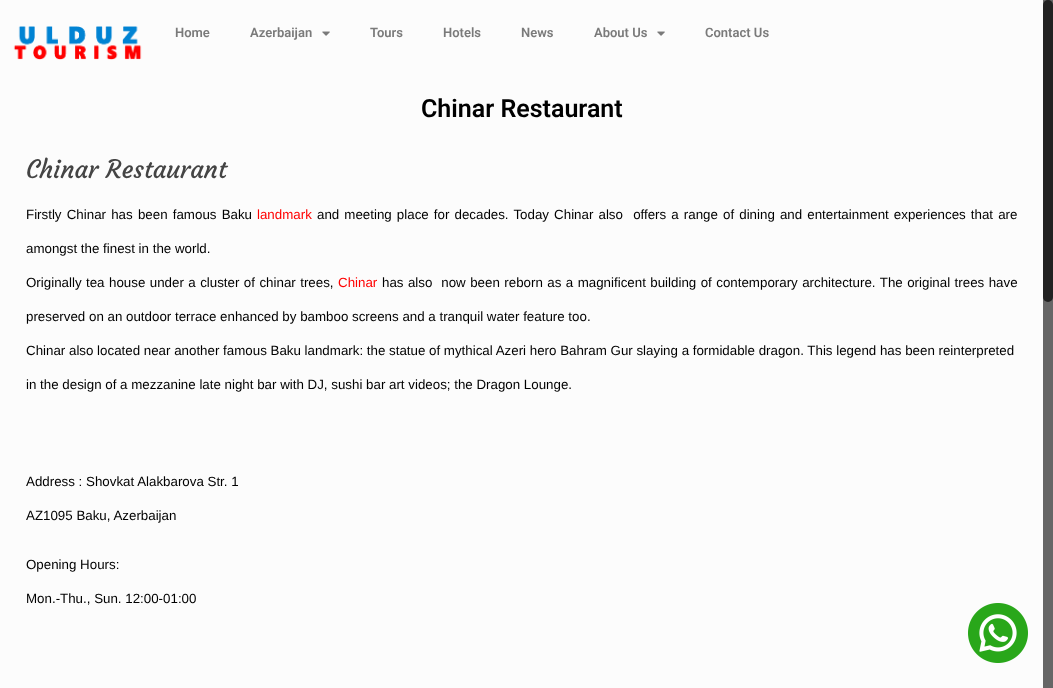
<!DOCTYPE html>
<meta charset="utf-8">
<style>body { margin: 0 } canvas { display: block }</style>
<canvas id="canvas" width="1053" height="688"></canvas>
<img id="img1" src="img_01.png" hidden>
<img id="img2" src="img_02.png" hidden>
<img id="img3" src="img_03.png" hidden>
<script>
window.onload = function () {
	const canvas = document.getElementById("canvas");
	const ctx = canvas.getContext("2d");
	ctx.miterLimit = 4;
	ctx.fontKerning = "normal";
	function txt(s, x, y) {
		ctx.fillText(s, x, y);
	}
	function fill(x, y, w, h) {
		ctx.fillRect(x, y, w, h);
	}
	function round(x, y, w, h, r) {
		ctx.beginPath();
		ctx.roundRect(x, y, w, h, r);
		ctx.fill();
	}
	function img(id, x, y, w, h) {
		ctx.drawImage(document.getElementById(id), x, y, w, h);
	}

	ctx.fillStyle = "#FCFCFC";
	fill(0, 0, 1053, 688);
	img("img1", 13, 26, 129, 34);
	img("img2", 322, 31, 8, 5);
	img("img2", 657, 31, 8, 5);
	ctx.fillStyle = "#666666";
	fill(1043, 0, 10, 688);
	ctx.fillStyle = "#222222";
	round(1043, 0, 10, 302, 5);
	img("img3", 968, 603, 60, 60);
	ctx.font = "600 13px Roboto";
	ctx.fillStyle = "#7A7A7A";
	txt("Home", 175, 37);
	txt("Azerbaijan", 250, 37);
	txt("Tours", 370, 37);
	txt("Hotels", 443, 37);
	txt("News", 521, 37);
	txt("About Us", 594, 37);
	txt("Contact Us", 705, 37);
	ctx.font = "600 25px Roboto";
	ctx.fillStyle = "#000000";
	txt("Chinar Restaurant", 421, 117);
	ctx.font = "25px Courgette";
	ctx.fillStyle = "#444444";
	txt("Chinar Restaurant", 26, 178);
	ctx.wordSpacing = "1.5px";
	ctx.font = "13.33px Liberation Sans";
	ctx.fillStyle = "#000000";
	txt("Firstly Chinar has been famous Baku", 26, 219);
	ctx.wordSpacing = "0px";
	ctx.fillStyle = "#FF0000";
	txt("landmark", 257, 219);
	ctx.wordSpacing = "1.4px";
	ctx.fillStyle = "#000000";
	txt("and meeting place for decades. Today Chinar also  offers a range of dining and entertainment experiences that are", 317, 219);
	ctx.wordSpacing = "0px";
	txt("amongst the finest in the world.", 26, 253);
	ctx.wordSpacing = "0.75px";
	txt("Originally tea house under a cluster of chinar trees,", 26, 287);
	ctx.wordSpacing = "0px";
	ctx.fillStyle = "#FF0000";
	txt("Chinar", 338, 287);
	ctx.wordSpacing = "0.75px";
	ctx.fillStyle = "#000000";
	txt("has also  now been reborn as a magnificent building of contemporary architecture. The оriginal trees have", 382, 287);
	ctx.wordSpacing = "0px";
	txt("preserved on an outdoor terrace enhanced by bamboo screens and a tranquil water feature too.", 26, 321);
	txt("Chinar also located near another famous Baku landmark: the statue of mythical Azeri hero Bahram Gur slaying a formidable dragon. This legend has been reinterpreted", 26, 355);
	txt("in the design of a mezzanine late night bar with DJ, sushi bar art videos; the Dragon Lounge.", 26, 389);
	txt("Address : Shovkat Alakbarova Str. 1", 26, 486);
	txt("AZ1095 Baku, Azerbaijan", 26, 520);
	txt("Opening Hours:", 26, 569);
	txt("Mon.-Thu., Sun. 12:00-01:00", 26, 603);
};
</script>
